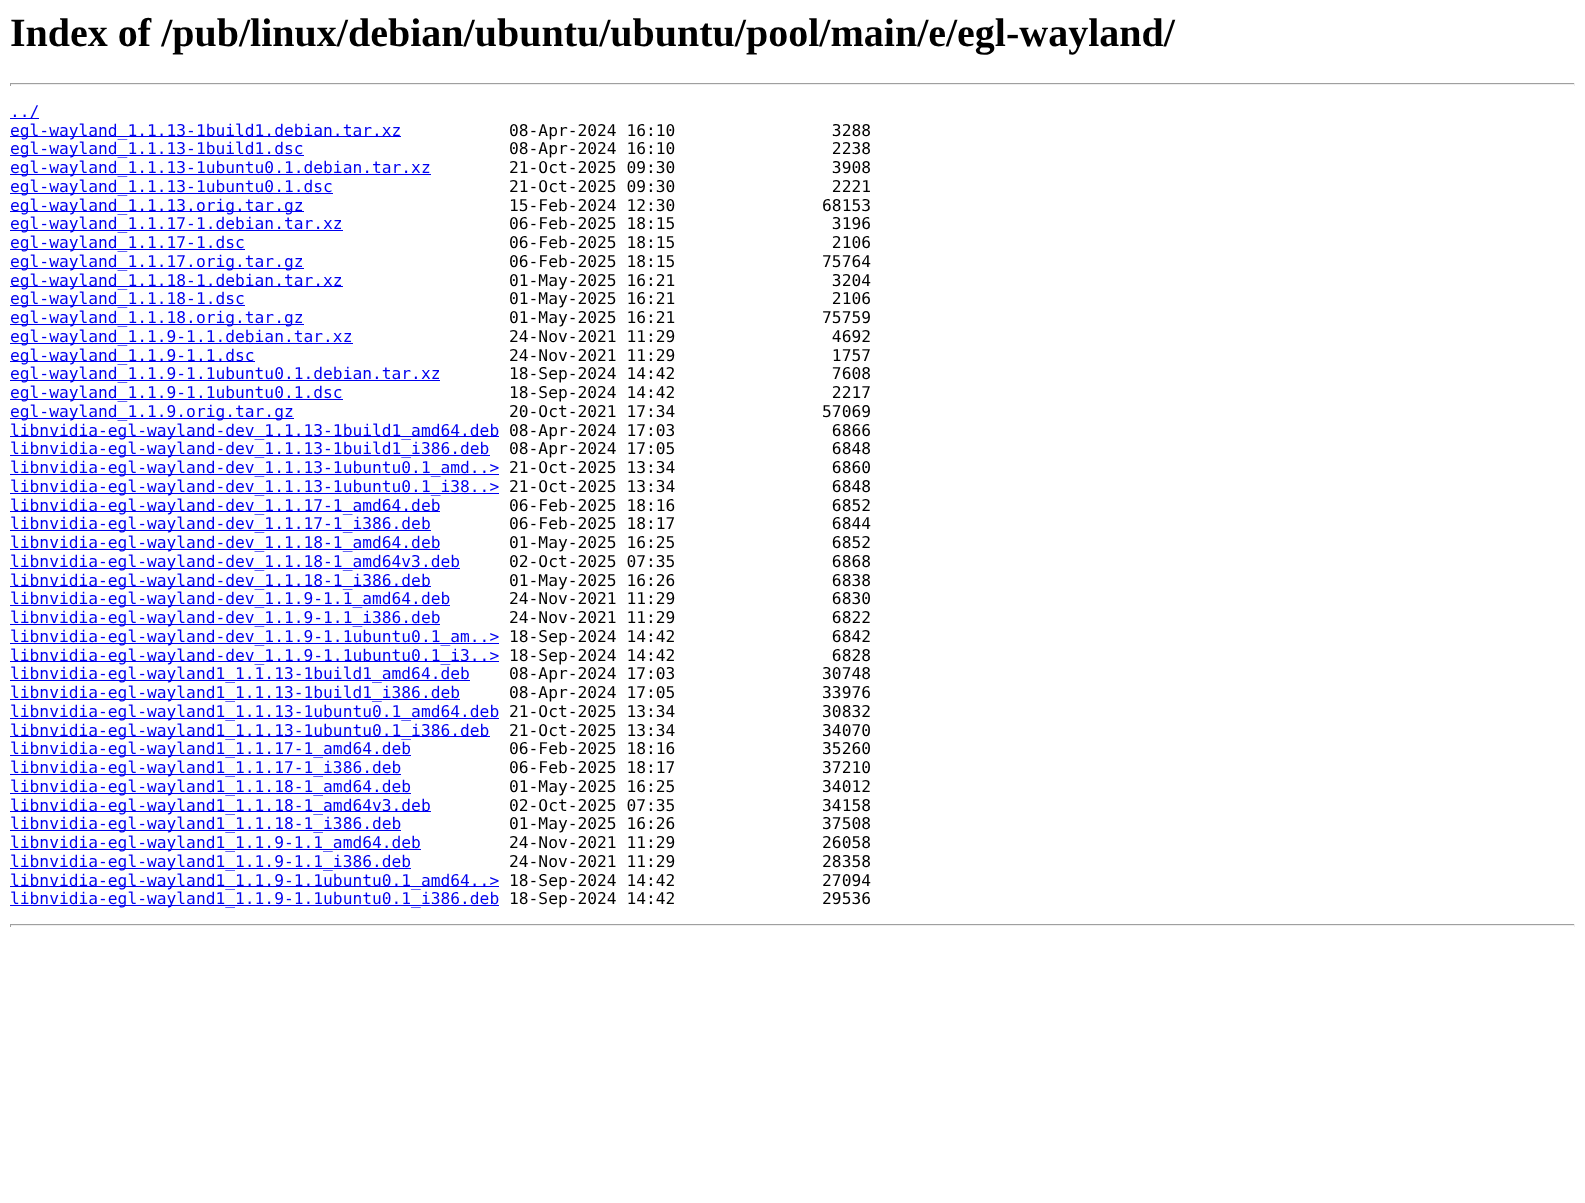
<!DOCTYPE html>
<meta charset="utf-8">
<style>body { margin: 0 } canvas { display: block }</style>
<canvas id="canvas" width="1585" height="1203"></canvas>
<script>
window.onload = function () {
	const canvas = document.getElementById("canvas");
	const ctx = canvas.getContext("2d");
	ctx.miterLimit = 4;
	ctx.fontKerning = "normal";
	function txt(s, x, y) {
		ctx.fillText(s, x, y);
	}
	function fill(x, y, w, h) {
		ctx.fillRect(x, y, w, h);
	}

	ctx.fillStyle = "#FFFFFF";
	fill(0, 0, 1585, 1203);
	ctx.fillStyle = "#9F9F9F";
	fill(10, 83, 1565, 1);
	ctx.fillStyle = "#EEEEEE";
	fill(1574, 83, 1, 3);
	fill(10, 84, 1565, 1);
	ctx.fillStyle = "#9F9F9F";
	fill(10, 83, 1, 3);
	ctx.fillStyle = "#0000EE";
	fill(10, 118, 29, 1);
	fill(10, 136, 391, 1);
	fill(10, 155, 294, 1);
	fill(10, 174, 421, 1);
	fill(10, 193, 323, 1);
	fill(10, 211, 294, 1);
	fill(10, 230, 333, 1);
	fill(10, 249, 235, 1);
	fill(10, 268, 294, 1);
	fill(10, 286, 333, 1);
	fill(10, 305, 235, 1);
	fill(10, 324, 294, 1);
	fill(10, 343, 343, 1);
	fill(10, 361, 245, 1);
	fill(10, 380, 430, 1);
	fill(10, 399, 333, 1);
	fill(10, 418, 284, 1);
	fill(10, 436, 489, 1);
	fill(10, 455, 480, 1);
	fill(10, 474, 489, 1);
	fill(10, 493, 489, 1);
	fill(10, 511, 430, 1);
	fill(10, 530, 421, 1);
	fill(10, 549, 430, 1);
	fill(10, 568, 450, 1);
	fill(10, 586, 421, 1);
	fill(10, 605, 440, 1);
	fill(10, 624, 430, 1);
	fill(10, 643, 489, 1);
	fill(10, 661, 489, 1);
	fill(10, 680, 460, 1);
	fill(10, 699, 450, 1);
	fill(10, 718, 489, 1);
	fill(10, 736, 480, 1);
	fill(10, 755, 401, 1);
	fill(10, 774, 391, 1);
	fill(10, 793, 401, 1);
	fill(10, 811, 421, 1);
	fill(10, 830, 391, 1);
	fill(10, 849, 411, 1);
	fill(10, 868, 401, 1);
	fill(10, 886, 489, 1);
	fill(10, 905, 489, 1);
	ctx.fillStyle = "#9F9F9F";
	fill(10, 924, 1565, 1);
	ctx.fillStyle = "#EEEEEE";
	fill(1574, 924, 1, 3);
	fill(10, 925, 1565, 1);
	ctx.fillStyle = "#9F9F9F";
	fill(10, 924, 1, 3);
	ctx.font = "bold 40px Liberation Serif";
	ctx.fillStyle = "#000000";
	txt("Index of /pub/linux/debian/ubuntu/ubuntu/pool/main/e/egl-wayland/", 10, 46);
	ctx.font = "16.25px DejaVu Sans Mono";
	ctx.fillStyle = "#0000EE";
	txt("../", 10, 117);
	txt("egl-wayland_1.1.13-1build1.debian.tar.xz", 10, 136);
	ctx.fillStyle = "#000000";
	txt("08-Apr-2024 16:10                3288", 509, 136);
	ctx.fillStyle = "#0000EE";
	txt("egl-wayland_1.1.13-1build1.dsc", 10, 154);
	ctx.fillStyle = "#000000";
	txt("08-Apr-2024 16:10                2238", 509, 154);
	ctx.fillStyle = "#0000EE";
	txt("egl-wayland_1.1.13-1ubuntu0.1.debian.tar.xz", 10, 173);
	ctx.fillStyle = "#000000";
	txt("21-Oct-2025 09:30                3908", 509, 173);
	ctx.fillStyle = "#0000EE";
	txt("egl-wayland_1.1.13-1ubuntu0.1.dsc", 10, 192);
	ctx.fillStyle = "#000000";
	txt("21-Oct-2025 09:30                2221", 509, 192);
	ctx.fillStyle = "#0000EE";
	txt("egl-wayland_1.1.13.orig.tar.gz", 10, 211);
	ctx.fillStyle = "#000000";
	txt("15-Feb-2024 12:30               68153", 509, 211);
	ctx.fillStyle = "#0000EE";
	txt("egl-wayland_1.1.17-1.debian.tar.xz", 10, 229);
	ctx.fillStyle = "#000000";
	txt("06-Feb-2025 18:15                3196", 509, 229);
	ctx.fillStyle = "#0000EE";
	txt("egl-wayland_1.1.17-1.dsc", 10, 248);
	ctx.fillStyle = "#000000";
	txt("06-Feb-2025 18:15                2106", 509, 248);
	ctx.fillStyle = "#0000EE";
	txt("egl-wayland_1.1.17.orig.tar.gz", 10, 267);
	ctx.fillStyle = "#000000";
	txt("06-Feb-2025 18:15               75764", 509, 267);
	ctx.fillStyle = "#0000EE";
	txt("egl-wayland_1.1.18-1.debian.tar.xz", 10, 286);
	ctx.fillStyle = "#000000";
	txt("01-May-2025 16:21                3204", 509, 286);
	ctx.fillStyle = "#0000EE";
	txt("egl-wayland_1.1.18-1.dsc", 10, 304);
	ctx.fillStyle = "#000000";
	txt("01-May-2025 16:21                2106", 509, 304);
	ctx.fillStyle = "#0000EE";
	txt("egl-wayland_1.1.18.orig.tar.gz", 10, 323);
	ctx.fillStyle = "#000000";
	txt("01-May-2025 16:21               75759", 509, 323);
	ctx.fillStyle = "#0000EE";
	txt("egl-wayland_1.1.9-1.1.debian.tar.xz", 10, 342);
	ctx.fillStyle = "#000000";
	txt("24-Nov-2021 11:29                4692", 509, 342);
	ctx.fillStyle = "#0000EE";
	txt("egl-wayland_1.1.9-1.1.dsc", 10, 361);
	ctx.fillStyle = "#000000";
	txt("24-Nov-2021 11:29                1757", 509, 361);
	ctx.fillStyle = "#0000EE";
	txt("egl-wayland_1.1.9-1.1ubuntu0.1.debian.tar.xz", 10, 379);
	ctx.fillStyle = "#000000";
	txt("18-Sep-2024 14:42                7608", 509, 379);
	ctx.fillStyle = "#0000EE";
	txt("egl-wayland_1.1.9-1.1ubuntu0.1.dsc", 10, 398);
	ctx.fillStyle = "#000000";
	txt("18-Sep-2024 14:42                2217", 509, 398);
	ctx.fillStyle = "#0000EE";
	txt("egl-wayland_1.1.9.orig.tar.gz", 10, 417);
	ctx.fillStyle = "#000000";
	txt("20-Oct-2021 17:34               57069", 509, 417);
	ctx.fillStyle = "#0000EE";
	txt("libnvidia-egl-wayland-dev_1.1.13-1build1_amd64.deb", 10, 436);
	ctx.fillStyle = "#000000";
	txt("08-Apr-2024 17:03                6866", 509, 436);
	ctx.fillStyle = "#0000EE";
	txt("libnvidia-egl-wayland-dev_1.1.13-1build1_i386.deb", 10, 454);
	ctx.fillStyle = "#000000";
	txt("08-Apr-2024 17:05                6848", 509, 454);
	ctx.fillStyle = "#0000EE";
	txt("libnvidia-egl-wayland-dev_1.1.13-1ubuntu0.1_amd..>", 10, 473);
	ctx.fillStyle = "#000000";
	txt("21-Oct-2025 13:34                6860", 509, 473);
	ctx.fillStyle = "#0000EE";
	txt("libnvidia-egl-wayland-dev_1.1.13-1ubuntu0.1_i38..>", 10, 492);
	ctx.fillStyle = "#000000";
	txt("21-Oct-2025 13:34                6848", 509, 492);
	ctx.fillStyle = "#0000EE";
	txt("libnvidia-egl-wayland-dev_1.1.17-1_amd64.deb", 10, 511);
	ctx.fillStyle = "#000000";
	txt("06-Feb-2025 18:16                6852", 509, 511);
	ctx.fillStyle = "#0000EE";
	txt("libnvidia-egl-wayland-dev_1.1.17-1_i386.deb", 10, 529);
	ctx.fillStyle = "#000000";
	txt("06-Feb-2025 18:17                6844", 509, 529);
	ctx.fillStyle = "#0000EE";
	txt("libnvidia-egl-wayland-dev_1.1.18-1_amd64.deb", 10, 548);
	ctx.fillStyle = "#000000";
	txt("01-May-2025 16:25                6852", 509, 548);
	ctx.fillStyle = "#0000EE";
	txt("libnvidia-egl-wayland-dev_1.1.18-1_amd64v3.deb", 10, 567);
	ctx.fillStyle = "#000000";
	txt("02-Oct-2025 07:35                6868", 509, 567);
	ctx.fillStyle = "#0000EE";
	txt("libnvidia-egl-wayland-dev_1.1.18-1_i386.deb", 10, 586);
	ctx.fillStyle = "#000000";
	txt("01-May-2025 16:26                6838", 509, 586);
	ctx.fillStyle = "#0000EE";
	txt("libnvidia-egl-wayland-dev_1.1.9-1.1_amd64.deb", 10, 604);
	ctx.fillStyle = "#000000";
	txt("24-Nov-2021 11:29                6830", 509, 604);
	ctx.fillStyle = "#0000EE";
	txt("libnvidia-egl-wayland-dev_1.1.9-1.1_i386.deb", 10, 623);
	ctx.fillStyle = "#000000";
	txt("24-Nov-2021 11:29                6822", 509, 623);
	ctx.fillStyle = "#0000EE";
	txt("libnvidia-egl-wayland-dev_1.1.9-1.1ubuntu0.1_am..>", 10, 642);
	ctx.fillStyle = "#000000";
	txt("18-Sep-2024 14:42                6842", 509, 642);
	ctx.fillStyle = "#0000EE";
	txt("libnvidia-egl-wayland-dev_1.1.9-1.1ubuntu0.1_i3..>", 10, 661);
	ctx.fillStyle = "#000000";
	txt("18-Sep-2024 14:42                6828", 509, 661);
	ctx.fillStyle = "#0000EE";
	txt("libnvidia-egl-wayland1_1.1.13-1build1_amd64.deb", 10, 679);
	ctx.fillStyle = "#000000";
	txt("08-Apr-2024 17:03               30748", 509, 679);
	ctx.fillStyle = "#0000EE";
	txt("libnvidia-egl-wayland1_1.1.13-1build1_i386.deb", 10, 698);
	ctx.fillStyle = "#000000";
	txt("08-Apr-2024 17:05               33976", 509, 698);
	ctx.fillStyle = "#0000EE";
	txt("libnvidia-egl-wayland1_1.1.13-1ubuntu0.1_amd64.deb", 10, 717);
	ctx.fillStyle = "#000000";
	txt("21-Oct-2025 13:34               30832", 509, 717);
	ctx.fillStyle = "#0000EE";
	txt("libnvidia-egl-wayland1_1.1.13-1ubuntu0.1_i386.deb", 10, 736);
	ctx.fillStyle = "#000000";
	txt("21-Oct-2025 13:34               34070", 509, 736);
	ctx.fillStyle = "#0000EE";
	txt("libnvidia-egl-wayland1_1.1.17-1_amd64.deb", 10, 754);
	ctx.fillStyle = "#000000";
	txt("06-Feb-2025 18:16               35260", 509, 754);
	ctx.fillStyle = "#0000EE";
	txt("libnvidia-egl-wayland1_1.1.17-1_i386.deb", 10, 773);
	ctx.fillStyle = "#000000";
	txt("06-Feb-2025 18:17               37210", 509, 773);
	ctx.fillStyle = "#0000EE";
	txt("libnvidia-egl-wayland1_1.1.18-1_amd64.deb", 10, 792);
	ctx.fillStyle = "#000000";
	txt("01-May-2025 16:25               34012", 509, 792);
	ctx.fillStyle = "#0000EE";
	txt("libnvidia-egl-wayland1_1.1.18-1_amd64v3.deb", 10, 811);
	ctx.fillStyle = "#000000";
	txt("02-Oct-2025 07:35               34158", 509, 811);
	ctx.fillStyle = "#0000EE";
	txt("libnvidia-egl-wayland1_1.1.18-1_i386.deb", 10, 829);
	ctx.fillStyle = "#000000";
	txt("01-May-2025 16:26               37508", 509, 829);
	ctx.fillStyle = "#0000EE";
	txt("libnvidia-egl-wayland1_1.1.9-1.1_amd64.deb", 10, 848);
	ctx.fillStyle = "#000000";
	txt("24-Nov-2021 11:29               26058", 509, 848);
	ctx.fillStyle = "#0000EE";
	txt("libnvidia-egl-wayland1_1.1.9-1.1_i386.deb", 10, 867);
	ctx.fillStyle = "#000000";
	txt("24-Nov-2021 11:29               28358", 509, 867);
	ctx.fillStyle = "#0000EE";
	txt("libnvidia-egl-wayland1_1.1.9-1.1ubuntu0.1_amd64..>", 10, 886);
	ctx.fillStyle = "#000000";
	txt("18-Sep-2024 14:42               27094", 509, 886);
	ctx.fillStyle = "#0000EE";
	txt("libnvidia-egl-wayland1_1.1.9-1.1ubuntu0.1_i386.deb", 10, 904);
	ctx.fillStyle = "#000000";
	txt("18-Sep-2024 14:42               29536", 509, 904);
};
</script>
